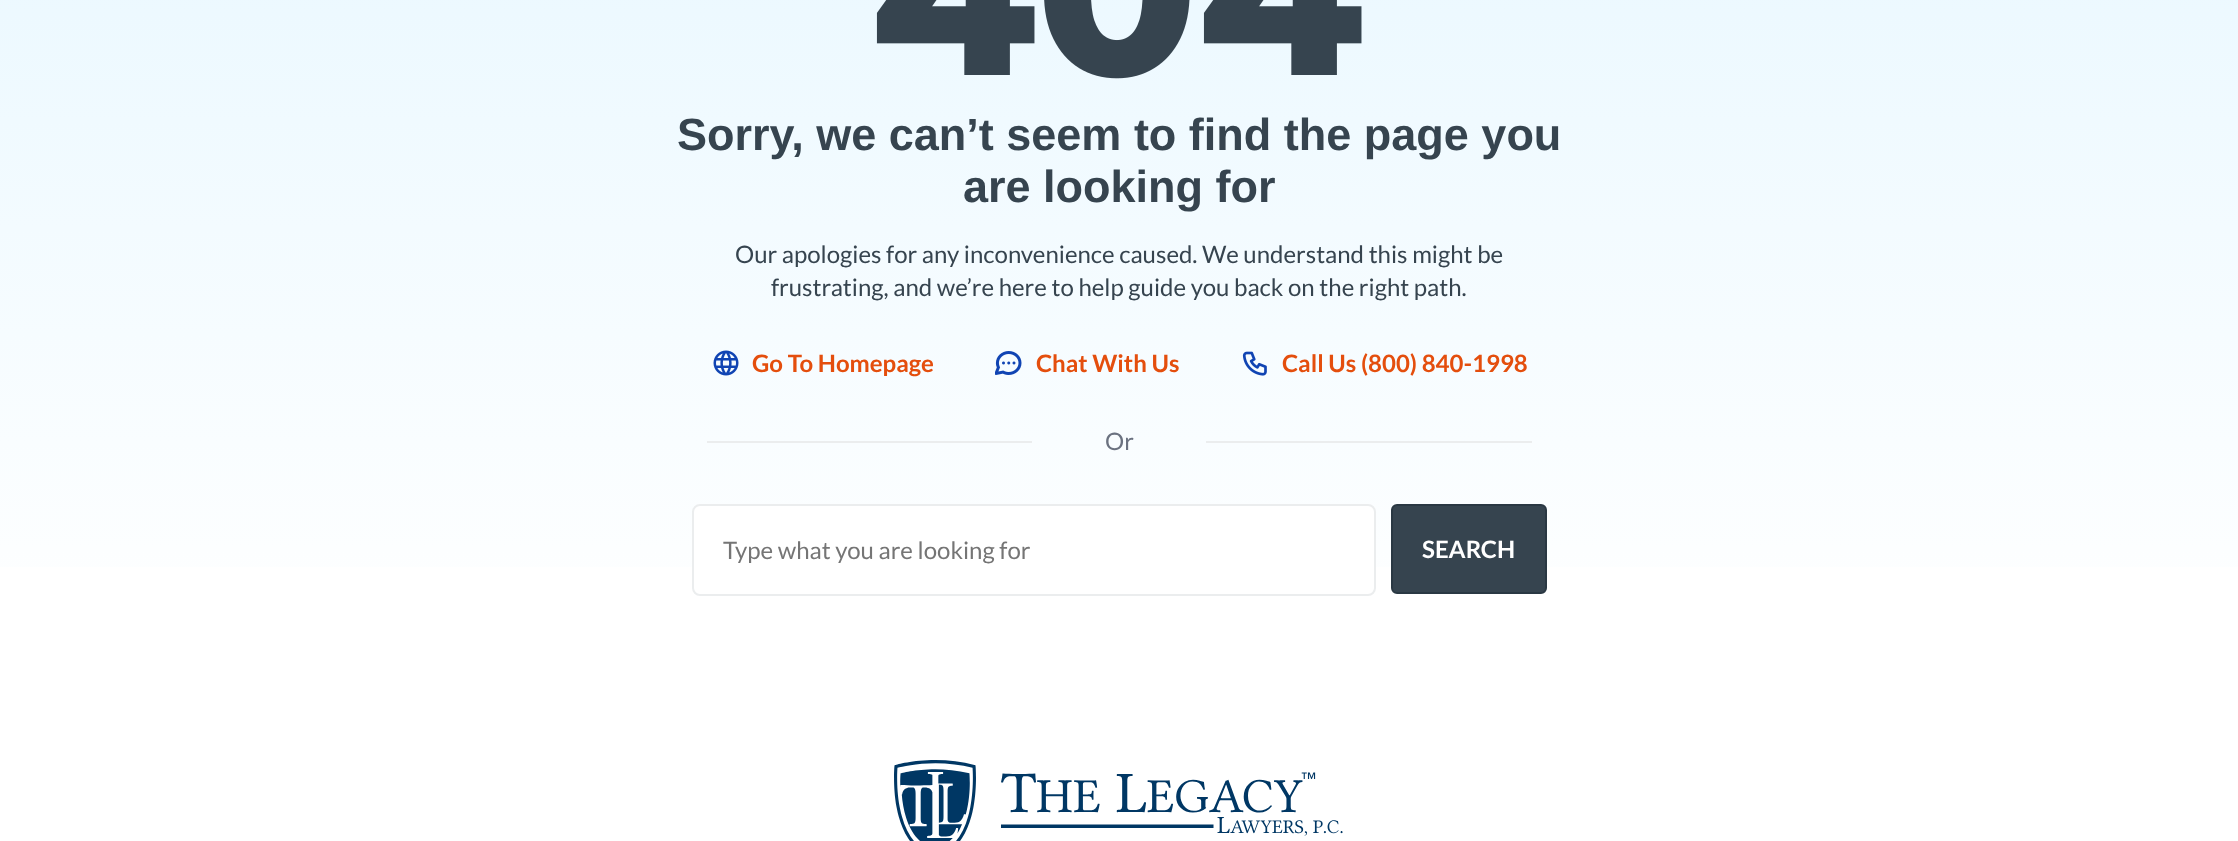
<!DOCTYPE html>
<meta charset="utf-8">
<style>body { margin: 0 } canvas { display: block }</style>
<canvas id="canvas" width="2238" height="841"></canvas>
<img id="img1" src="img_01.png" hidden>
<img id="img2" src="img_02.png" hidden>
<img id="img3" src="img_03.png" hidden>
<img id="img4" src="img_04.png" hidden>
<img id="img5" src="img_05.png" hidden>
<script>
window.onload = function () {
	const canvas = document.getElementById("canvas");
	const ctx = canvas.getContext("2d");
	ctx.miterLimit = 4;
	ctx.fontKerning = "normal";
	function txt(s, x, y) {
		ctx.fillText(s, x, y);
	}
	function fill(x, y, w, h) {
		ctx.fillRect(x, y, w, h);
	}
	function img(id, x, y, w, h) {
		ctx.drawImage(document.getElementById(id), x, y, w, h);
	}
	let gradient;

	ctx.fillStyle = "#FFFFFF";
	fill(0, 0, 2238, 841);
	gradient = ctx.createLinearGradient(1119, -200, 1119, 656);
	gradient.addColorStop(0, "#E7F7FF");
	gradient.addColorStop(1, "#FFFFFF");
	ctx.fillStyle = gradient;
	fill(0, 0, 2238, 567);
	img("img1", 876, 0, 486, 79);
	img("img2", 713, 350, 26, 26);
	img("img3", 995, 351, 27, 24);
	img("img4", 1242, 351, 25, 25);
	ctx.fillStyle = "#EBEDEE";
	fill(707, 441, 325, 2);
	fill(1206, 441, 326, 2);
	ctx.fillStyle = "#FFFFFF";
	ctx.beginPath();
	ctx.roundRect(693, 505, 682, 90, 7);
	ctx.fill();
	ctx.strokeStyle = "#EBEDEE";
	ctx.lineWidth = 2;
	ctx.stroke();
	ctx.fillStyle = "#36444F";
	ctx.beginPath();
	ctx.roundRect(1392, 505, 154, 88, 5);
	ctx.fill();
	ctx.strokeStyle = "#2A3843";
	ctx.stroke();
	img("img5", 894, 760, 449, 81);
	ctx.font = "bold 45px Liberation Sans";
	txt("Sorry, we can’t seem to find the page you", 677, 150);
	txt("are looking for", 963, 202);
	ctx.font = "24px Lato";
	txt("Our apologies for any inconvenience caused. We understand this might be", 735, 263);
	txt("frustrating, and we’re here to help guide you back on the right path.", 771, 296);
	ctx.font = "bold 24px Lato";
	ctx.fillStyle = "#E44E0D";
	txt("Go To Homepage", 752, 372);
	txt("Chat With Us", 1036, 372);
	txt("Call Us (800) 840-1998", 1282, 372);
	ctx.font = "24px Lato";
	ctx.fillStyle = "#6B7280";
	txt("Or", 1105, 450);
	ctx.fillStyle = "#757575";
	txt("Type what you are looking for", 723, 559);
	ctx.font = "bold 24px Lato";
	ctx.fillStyle = "#FFFFFF";
	txt("SEARCH", 1422, 558);
};
</script>
